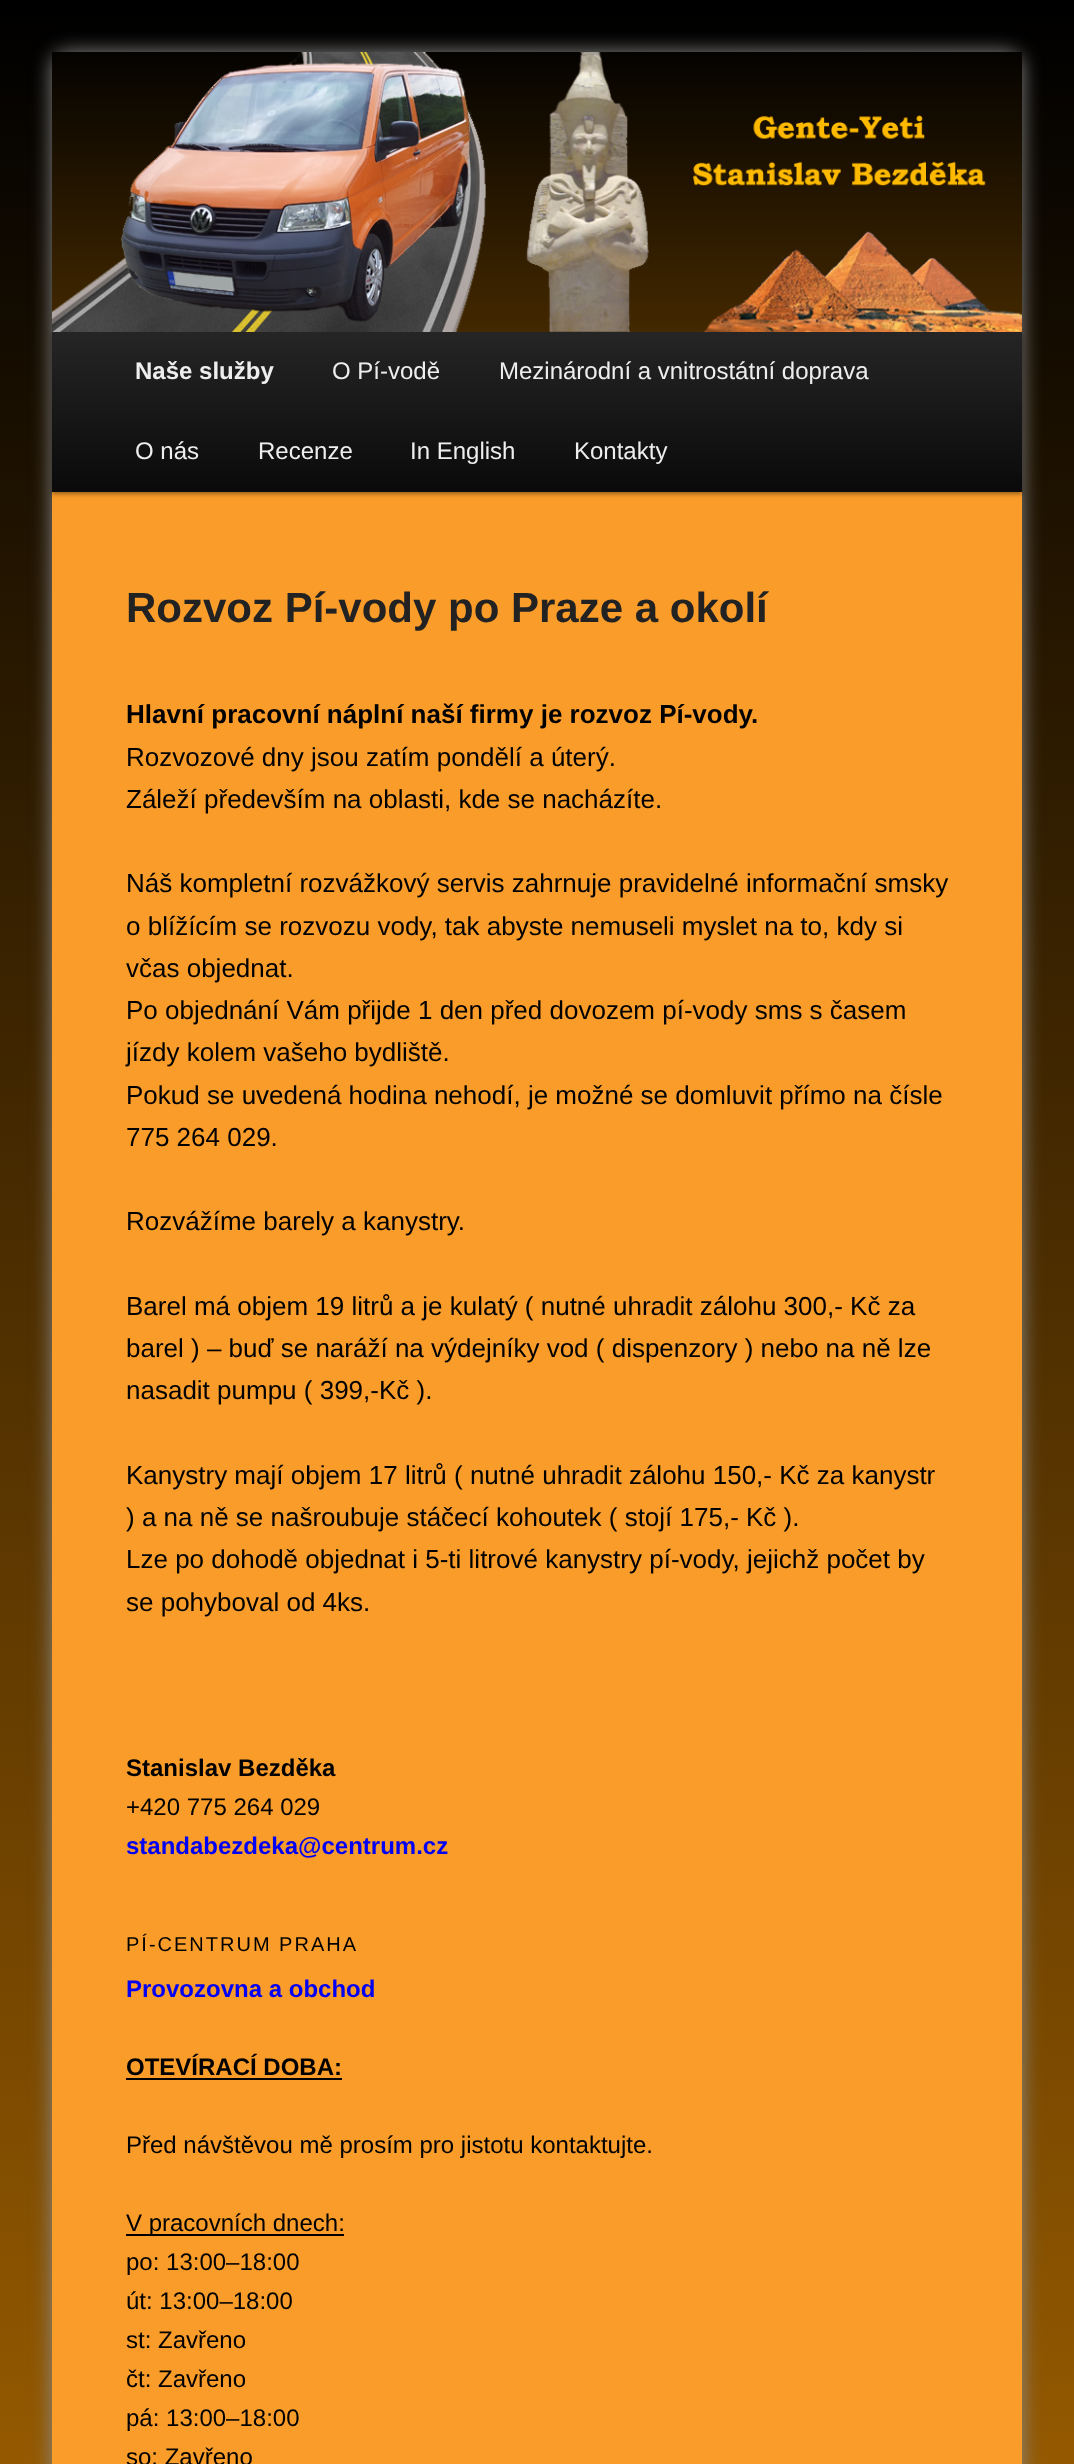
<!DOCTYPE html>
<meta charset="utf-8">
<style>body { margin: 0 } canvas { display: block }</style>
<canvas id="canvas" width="1074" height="2464"></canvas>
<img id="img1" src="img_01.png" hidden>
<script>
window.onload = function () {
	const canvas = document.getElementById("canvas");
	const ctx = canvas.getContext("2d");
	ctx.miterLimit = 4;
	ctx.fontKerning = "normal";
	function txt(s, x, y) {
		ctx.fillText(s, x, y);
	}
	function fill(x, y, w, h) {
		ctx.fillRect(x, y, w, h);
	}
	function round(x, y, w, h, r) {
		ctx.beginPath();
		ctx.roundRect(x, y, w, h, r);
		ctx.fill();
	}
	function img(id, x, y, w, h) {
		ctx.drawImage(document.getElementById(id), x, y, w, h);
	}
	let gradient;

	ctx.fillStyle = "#FFFFFF";
	fill(0, 0, 1074, 2464);
	gradient = ctx.createLinearGradient(537, 0, 537, 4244);
	gradient.addColorStop(0, "#000000");
	gradient.addColorStop(1, "#FF9900");
	ctx.fillStyle = gradient;
	fill(0, 0, 1074, 2464);
	ctx.fillStyle = "#888888";
	ctx.filter = "blur(10px)";
	ctx.beginPath();
	ctx.roundRect(52, 52, 970, 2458, 16);
	ctx.fill();
	ctx.filter = "none";
	ctx.fillStyle = "#FA9C2A";
	round(52, 52, 970, 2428, 16);
	ctx.fillStyle = "rgba(0, 0, 0, 0.4)";
	ctx.filter = "blur(2px)";
	ctx.beginPath();
	ctx.rect(52, 334, 970, 160);
	ctx.fill();
	ctx.filter = "none";
	img("img1", 52, 52, 970, 280);
	gradient = ctx.createLinearGradient(537, 332, 537, 492);
	gradient.addColorStop(0, "#252525");
	gradient.addColorStop(1, "#0A0A0A");
	ctx.fillStyle = gradient;
	fill(52, 332, 970, 160);
	ctx.fillStyle = "#000000";
	fill(126, 2078, 216, 2);
	fill(126, 2234, 218, 2);
	ctx.font = "bold 24px Liberation Sans";
	ctx.fillStyle = "#EEEEEE";
	txt("Naše služby", 135, 379);
	ctx.font = "24px Liberation Sans";
	txt("O Pí-vodě", 332, 379);
	txt("Mezinárodní a vnitrostátní doprava", 499, 379);
	txt("O nás", 135, 459);
	txt("Recenze", 258, 459);
	txt("In English", 410, 459);
	txt("Kontakty", 574, 459);
	ctx.font = "bold 42px Liberation Sans";
	ctx.fillStyle = "#222222";
	txt("Rozvoz Pí-vody po Praze a okolí", 126, 622);
	ctx.font = "bold 26px Liberation Sans";
	ctx.fillStyle = "#000000";
	txt("Hlavní pracovní náplní naší firmy je rozvoz Pí-vody.", 126, 723);
	ctx.font = "26px Liberation Sans";
	txt("Rozvozové dny jsou zatím pondělí a úterý.", 126, 766);
	txt("Záleží především na oblasti, kde se nacházíte.", 126, 808);
	txt("Náš kompletní rozvážkový servis zahrnuje pravidelné informační smsky", 126, 892);
	txt("o blížícím se rozvozu vody, tak abyste nemuseli myslet na to, kdy si", 126, 935);
	txt("včas objednat.", 126, 977);
	txt("Po objednání Vám přijde 1 den před dovozem pí-vody sms s časem", 126, 1019);
	txt("jízdy kolem vašeho bydliště.", 126, 1061);
	txt("Pokud se uvedená hodina nehodí, je možné se domluvit přímo na čísle", 126, 1104);
	txt("775 264 029.", 126, 1146);
	txt("Rozvážíme barely a kanystry.", 126, 1230);
	txt("Barel má objem 19 litrů a je kulatý ( nutné uhradit zálohu 300,- Kč za", 126, 1315);
	txt("barel ) – buď se naráží na výdejníky vod ( dispenzory ) nebo na ně lze", 126, 1357);
	txt("nasadit pumpu ( 399,-Kč ).", 126, 1399);
	txt("Kanystry mají objem 17 litrů ( nutné uhradit zálohu 150,- Kč za kanystr", 126, 1484);
	txt(") a na ně se našroubuje stáčecí kohoutek ( stojí 175,- Kč ).", 126, 1526);
	txt("Lze po dohodě objednat i 5-ti litrové kanystry pí-vody, jejichž počet by", 126, 1568);
	txt("se pohyboval od 4ks.", 126, 1611);
	ctx.font = "bold 24px Liberation Sans";
	txt("Stanislav Bezděka", 126, 1776);
	ctx.font = "24px Liberation Sans";
	txt("+420 775 264 029", 126, 1815);
	ctx.font = "bold 24px Liberation Sans";
	ctx.fillStyle = "#0000F4";
	txt("standabezdeka@centrum.cz", 126, 1854);
	ctx.letterSpacing = "2px";
	ctx.font = "20px Liberation Sans";
	ctx.fillStyle = "#000000";
	txt("PÍ-CENTRUM PRAHA", 126, 1951);
	ctx.letterSpacing = "0px";
	ctx.font = "bold 24px Liberation Sans";
	ctx.fillStyle = "#0000F4";
	txt("Provozovna a obchod", 126, 1997);
	ctx.fillStyle = "#000000";
	txt("OTEVÍRACÍ DOBA:", 126, 2075);
	ctx.font = "24px Liberation Sans";
	txt("Před návštěvou mě prosím pro jistotu kontaktujte.", 126, 2153);
	txt("V pracovních dnech:", 126, 2231);
	txt("po: 13:00–18:00", 126, 2270);
	txt("út: 13:00–18:00", 126, 2309);
	txt("st: Zavřeno", 126, 2348);
	txt("čt: Zavřeno", 126, 2387);
	txt("pá: 13:00–18:00", 126, 2426);
	txt("so: Zavřeno", 126, 2465);
};
</script>
